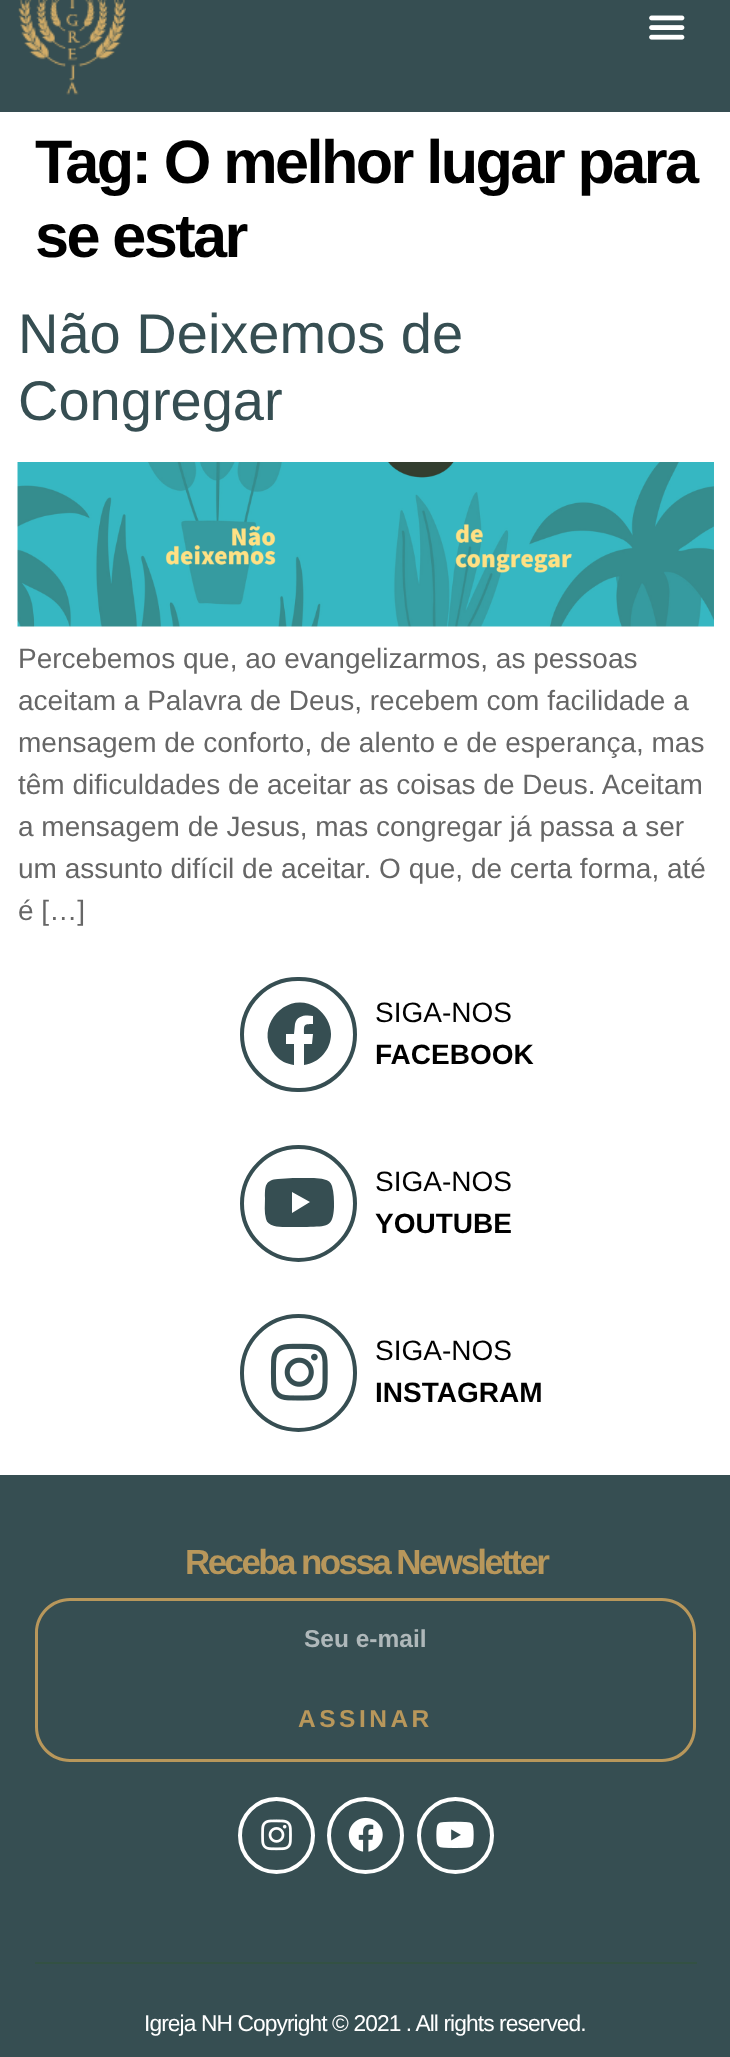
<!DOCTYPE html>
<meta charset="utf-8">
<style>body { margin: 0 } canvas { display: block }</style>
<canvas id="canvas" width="730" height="2057"></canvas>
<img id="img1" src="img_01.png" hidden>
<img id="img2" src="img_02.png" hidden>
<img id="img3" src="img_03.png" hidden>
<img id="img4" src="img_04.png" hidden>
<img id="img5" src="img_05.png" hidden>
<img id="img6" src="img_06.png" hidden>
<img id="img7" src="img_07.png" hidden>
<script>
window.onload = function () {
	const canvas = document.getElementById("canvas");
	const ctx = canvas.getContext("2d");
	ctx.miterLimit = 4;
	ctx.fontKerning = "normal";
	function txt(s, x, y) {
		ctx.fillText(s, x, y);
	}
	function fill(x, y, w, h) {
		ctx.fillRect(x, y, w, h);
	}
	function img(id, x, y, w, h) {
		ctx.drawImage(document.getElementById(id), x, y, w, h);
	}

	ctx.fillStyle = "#FFFFFF";
	fill(0, 0, 730, 2057);
	ctx.fillStyle = "#364E52";
	fill(0, 0, 730, 112);
	img("img1", 18, 0, 108, 95);
	img("img2", 649, 15, 36, 25);
	img("img3", 17, 462, 697, 165);
	ctx.beginPath();
	ctx.roundRect(242, 979, 113, 111, 55.5);
	ctx.strokeStyle = "#364E52";
	ctx.lineWidth = 4;
	ctx.stroke();
	ctx.beginPath();
	ctx.moveTo(331, 1034);
	ctx.bezierCurveTo(331, 1050, 319, 1063, 304, 1065);
	ctx.lineTo(304, 1044);
	ctx.lineTo(312, 1044);
	ctx.lineTo(313, 1034);
	ctx.lineTo(304, 1034);
	ctx.bezierCurveTo(304, 1025, 303, 1024, 313, 1024);
	ctx.lineTo(313, 1016);
	ctx.bezierCurveTo(306, 1015, 297, 1015, 295, 1024);
	ctx.lineTo(294, 1034);
	ctx.lineTo(286, 1034);
	ctx.lineTo(286, 1044);
	ctx.lineTo(294, 1044);
	ctx.lineTo(294, 1065);
	ctx.bezierCurveTo(287, 1064, 280, 1061, 275, 1055);
	ctx.bezierCurveTo(252, 1028, 287, 988, 317, 1008);
	ctx.bezierCurveTo(325, 1014, 331, 1024, 331, 1034);
	ctx.closePath();
	ctx.fill();
	ctx.beginPath();
	ctx.arc(298.5, 1203.5, 56.5, 0, Math.PI * 2);
	ctx.stroke();
	ctx.beginPath();
	ctx.moveTo(332, 1186);
	ctx.bezierCurveTo(334, 1193, 334, 1200, 334, 1207);
	ctx.bezierCurveTo(333, 1228, 327, 1226, 307, 1227);
	ctx.lineTo(290, 1227);
	ctx.bezierCurveTo(283, 1227, 268, 1228, 266, 1219);
	ctx.bezierCurveTo(264, 1212, 265, 1205, 265, 1198);
	ctx.bezierCurveTo(265, 1186, 265, 1180, 278, 1179);
	ctx.lineTo(293, 1178);
	ctx.lineTo(314, 1178);
	ctx.bezierCurveTo(320, 1179, 330, 1178, 332, 1186);
	ctx.closePath();
	ctx.moveTo(292, 1213);
	ctx.lineTo(310, 1202);
	ctx.lineTo(292, 1192);
	ctx.closePath();
	ctx.fill();
	ctx.beginPath();
	ctx.roundRect(242, 1316, 113, 114, 56.5);
	ctx.stroke();
	img("img4", 270, 1343, 58, 58);
	fill(0, 1475, 730, 582);
	ctx.fillStyle = "#B8975B";
	ctx.beginPath();
	ctx.moveTo(70, 1598);
	ctx.lineTo(662, 1598);
	ctx.bezierCurveTo(681, 1598, 696, 1613, 696, 1633);
	ctx.lineTo(696, 1680);
	ctx.lineTo(35, 1680);
	ctx.lineTo(35, 1633);
	ctx.bezierCurveTo(35, 1613, 51, 1598, 70, 1598);
	ctx.closePath();
	ctx.moveTo(70, 1601);
	ctx.lineTo(662, 1601);
	ctx.bezierCurveTo(679, 1601, 693, 1615, 693, 1633);
	ctx.lineTo(693, 1680);
	ctx.lineTo(38, 1680);
	ctx.lineTo(38, 1633);
	ctx.bezierCurveTo(38, 1615, 53, 1601, 70, 1601);
	ctx.closePath();
	ctx.fill("evenodd");
	ctx.beginPath();
	ctx.moveTo(35, 1680);
	ctx.lineTo(696, 1680);
	ctx.lineTo(696, 1727);
	ctx.bezierCurveTo(696, 1747, 681, 1762, 662, 1762);
	ctx.lineTo(70, 1762);
	ctx.bezierCurveTo(51, 1762, 35, 1747, 35, 1727);
	ctx.closePath();
	ctx.moveTo(38, 1680);
	ctx.lineTo(693, 1680);
	ctx.lineTo(693, 1727);
	ctx.bezierCurveTo(693, 1745, 679, 1759, 662, 1759);
	ctx.lineTo(70, 1759);
	ctx.bezierCurveTo(53, 1759, 38, 1745, 38, 1727);
	ctx.closePath();
	ctx.fill("evenodd");
	ctx.beginPath();
	ctx.arc(276.5, 1835.5, 36.5, 0, Math.PI * 2);
	ctx.strokeStyle = "#FFFFFF";
	ctx.stroke();
	img("img5", 261, 1819, 31, 32);
	ctx.beginPath();
	ctx.arc(365.5, 1835.5, 36.5, 0, Math.PI * 2);
	ctx.stroke();
	img("img6", 348, 1817, 35, 35);
	ctx.beginPath();
	ctx.arc(455.5, 1835.5, 36.5, 0, Math.PI * 2);
	ctx.stroke();
	img("img7", 436, 1821, 38, 27);
	ctx.fillStyle = "#335143";
	fill(35, 1962, 662, 2);
	ctx.letterSpacing = "-2.6px";
	ctx.font = "bold 61.25px Liberation Sans";
	ctx.fillStyle = "#000000";
	txt("Tag: O melhor lugar para", 35, 183);
	txt("se estar", 35, 257);
	ctx.letterSpacing = "0px";
	ctx.font = "56px Liberation Sans";
	ctx.fillStyle = "#364E52";
	txt("Não Deixemos de", 18, 353);
	txt("Congregar", 18, 420);
	ctx.font = "28px Liberation Sans";
	ctx.fillStyle = "#666666";
	txt("Percebemos que, ao evangelizarmos, as pessoas", 18, 668);
	txt("aceitam a Palavra de Deus, recebem com facilidade a", 18, 710);
	txt("mensagem de conforto, de alento e de esperança, mas", 18, 752);
	txt("têm dificuldades de aceitar as coisas de Deus. Aceitam", 18, 794);
	txt("a mensagem de Jesus, mas congregar já passa a ser", 18, 836);
	txt("um assunto difícil de aceitar. O que, de certa forma, até", 18, 878);
	txt("é […]", 18, 920);
	ctx.fillStyle = "#000000";
	txt("SIGA-NOS", 375, 1022);
	ctx.font = "bold 28px Liberation Sans";
	txt("FACEBOOK", 375, 1064);
	ctx.font = "28px Liberation Sans";
	txt("SIGA-NOS", 375, 1191);
	ctx.font = "bold 28px Liberation Sans";
	txt("YOUTUBE", 375, 1233);
	ctx.font = "28px Liberation Sans";
	txt("SIGA-NOS", 375, 1360);
	ctx.font = "bold 28px Liberation Sans";
	txt("INSTAGRAM", 375, 1402);
	ctx.letterSpacing = "-2.6px";
	ctx.font = "bold 35px Liberation Sans";
	ctx.fillStyle = "#B8975B";
	txt("Receba nossa Newsletter", 185, 1574);
	ctx.letterSpacing = "0px";
	ctx.font = "bold 24.5px Liberation Sans";
	ctx.fillStyle = "#AFB8BA";
	txt("Seu e-mail", 304, 1647);
	ctx.letterSpacing = "3.5px";
	ctx.fillStyle = "#B8975B";
	txt("ASSINAR", 298, 1727);
	ctx.letterSpacing = "-0.9px";
	ctx.font = "22.75px Liberation Sans";
	ctx.fillStyle = "#FFFFFF";
	txt("Igreja NH Copyright © 2021 . All rights reserved.", 144, 2031);
};
</script>
